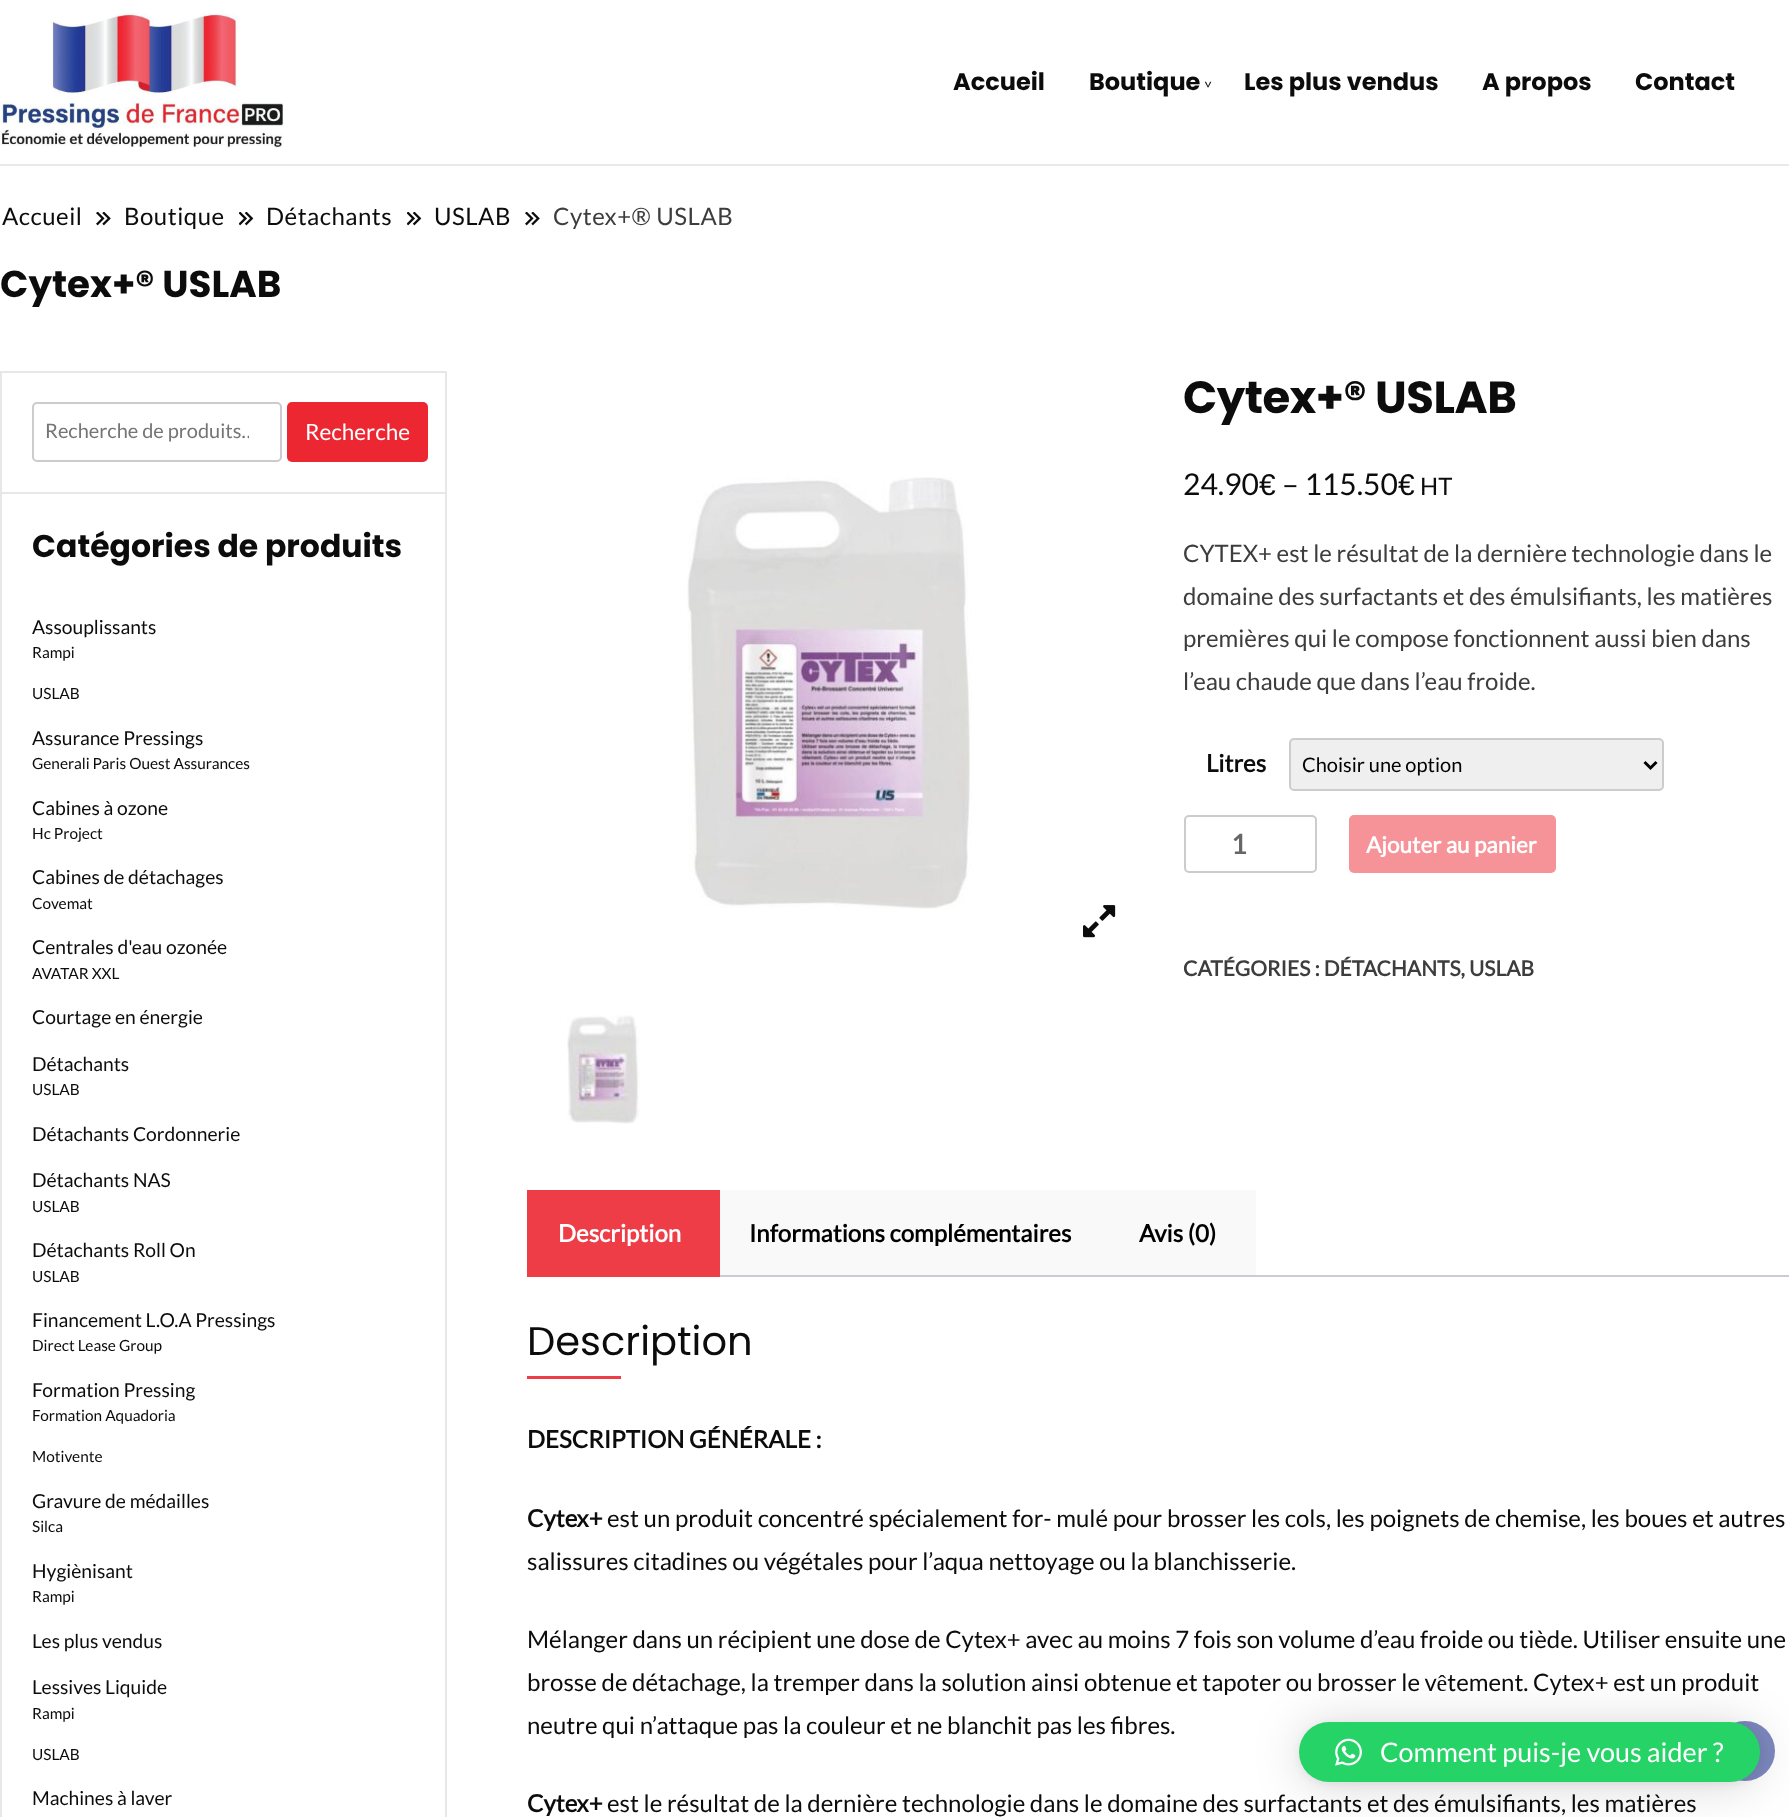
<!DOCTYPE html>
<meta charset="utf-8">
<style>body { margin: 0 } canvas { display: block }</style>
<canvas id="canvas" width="1789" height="1817"></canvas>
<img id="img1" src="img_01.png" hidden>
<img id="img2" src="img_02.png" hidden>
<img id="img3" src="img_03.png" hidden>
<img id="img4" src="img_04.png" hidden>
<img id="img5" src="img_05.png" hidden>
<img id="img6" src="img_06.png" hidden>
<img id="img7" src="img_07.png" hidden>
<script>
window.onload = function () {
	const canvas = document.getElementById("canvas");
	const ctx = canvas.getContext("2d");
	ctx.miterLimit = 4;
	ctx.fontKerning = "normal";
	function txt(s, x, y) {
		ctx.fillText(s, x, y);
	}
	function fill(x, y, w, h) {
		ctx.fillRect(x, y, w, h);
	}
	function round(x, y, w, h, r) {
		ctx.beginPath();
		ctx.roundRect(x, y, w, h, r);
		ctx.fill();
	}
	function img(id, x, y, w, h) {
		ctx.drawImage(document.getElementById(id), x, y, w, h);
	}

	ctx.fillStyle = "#FFFFFF";
	fill(0, 0, 1789, 1817);
	ctx.fillStyle = "#E8E9E9";
	fill(0, 164, 1789, 2);
	img("img1", 0, 13, 284, 135);
	img("img2", 96, 212, 15, 14);
	img("img3", 239, 212, 15, 14);
	img("img3", 407, 212, 15, 14);
	img("img2", 525, 212, 15, 14);
	ctx.strokeStyle = "#E7E7E7";
	ctx.lineWidth = 2;
	ctx.strokeRect(1, 372, 445, 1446);
	ctx.fillStyle = "#E7E7E7";
	fill(2, 492, 444, 2);
	ctx.beginPath();
	ctx.roundRect(33, 403, 248, 58, 4);
	ctx.strokeStyle = "#CCCCCC";
	ctx.stroke();
	ctx.fillStyle = "#ED2732";
	round(287, 402, 141, 60, 5);
	img("img4", 687, 477, 285, 432);
	img("img5", 1083, 905, 33, 33);
	img("img6", 567, 1015, 73, 109);
	ctx.fillStyle = "#EFEFEF";
	ctx.beginPath();
	ctx.roundRect(1290, 739, 373, 51, 4);
	ctx.fill();
	ctx.stroke();
	ctx.beginPath();
	ctx.moveTo(1644.5, 762);
	ctx.lineTo(1650.5, 768);
	ctx.lineTo(1656.5, 762);
	ctx.strokeStyle = "#000000";
	ctx.lineWidth = 3;
	ctx.stroke();
	ctx.beginPath();
	ctx.roundRect(1185, 816, 131, 56, 4);
	ctx.strokeStyle = "#CCCCCC";
	ctx.lineWidth = 2;
	ctx.stroke();
	ctx.fillStyle = "#F69399";
	round(1349, 815, 207, 58, 5);
	ctx.fillStyle = "#EF3D47";
	fill(527, 1190, 193, 87);
	ctx.fillStyle = "#F9F9F9";
	fill(720, 1190, 536, 85);
	ctx.fillStyle = "#CFC8D8";
	fill(720, 1275, 1069, 2);
	ctx.fillStyle = "#EF3D47";
	fill(527, 1376, 94, 3);
	ctx.fillStyle = "#7D88BE";
	ctx.beginPath();
	ctx.arc(1745, 1751, 30, 0, Math.PI * 2);
	ctx.fill();
	ctx.fillStyle = "rgba(0, 0, 0, 0.16)";
	ctx.filter = "blur(24px)";
	ctx.beginPath();
	ctx.roundRect(1299, 1725, 461, 60, 30);
	ctx.fill();
	ctx.filter = "none";
	ctx.fillStyle = "rgba(0, 0, 0, 0.06)";
	ctx.filter = "blur(4.5px)";
	ctx.beginPath();
	ctx.roundRect(1299, 1724, 461, 60, 30);
	ctx.fill();
	ctx.filter = "none";
	ctx.fillStyle = "#25D366";
	round(1299, 1722, 461, 60, 30);
	img("img7", 1335, 1738, 27, 28);
	ctx.font = "bold 24px Poppins";
	ctx.fillStyle = "#0C0C0C";
	txt("Accueil", 953, 90);
	txt("Boutique", 1089, 90);
	ctx.font = "15px Lato";
	ctx.save();
	ctx.translate(1203, 80);
	ctx.rotate(90 * Math.PI / 180);
	ctx.fillText(">", 0, 0);
	ctx.restore();
	ctx.font = "bold 24px Poppins";
	txt("Les plus vendus", 1244, 90);
	txt("A propos", 1482, 90);
	txt("Contact", 1635, 90);
	ctx.letterSpacing = "0.5px";
	ctx.font = "24px Lato";
	txt("Accueil", 2, 225);
	txt("Boutique", 124, 225);
	txt("Détachants", 266, 225);
	txt("USLAB", 434, 225);
	ctx.fillStyle = "#3D3D3D";
	txt("Cytex+® USLAB", 553, 225);
	ctx.letterSpacing = "0px";
	ctx.font = "bold 37.25px Poppins";
	ctx.fillStyle = "#0C0C0C";
	txt("Cytex+® USLAB", 0, 297);
	ctx.save();
	ctx.beginPath();
	ctx.rect(45, 419, 204, 24);
	ctx.clip();
	ctx.font = "20px Lato";
	ctx.fillStyle = "#757575";
	txt("Recherche de produits…", 45, 438);
	ctx.restore();
	ctx.font = "22.5px Lato";
	ctx.fillStyle = "#FFFFFF";
	txt("Recherche", 305, 440);
	ctx.font = "bold 31.5px Poppins";
	ctx.fillStyle = "#0C0C0C";
	txt("Catégories de produits", 32, 557);
	ctx.font = "19.25px Lato";
	txt("Assouplissants", 32, 634);
	ctx.font = "15.4px Lato";
	txt("Rampi", 32, 658);
	txt("USLAB", 32, 699);
	ctx.font = "19.25px Lato";
	txt("Assurance Pressings", 32, 745);
	ctx.font = "15.4px Lato";
	txt("Generali Paris Ouest Assurances", 32, 769);
	ctx.font = "19.25px Lato";
	txt("Cabines à ozone", 32, 815);
	ctx.font = "15.4px Lato";
	txt("Hc Project", 32, 839);
	ctx.font = "19.25px Lato";
	txt("Cabines de détachages", 32, 884);
	ctx.font = "15.4px Lato";
	txt("Covemat", 32, 909);
	ctx.font = "19.25px Lato";
	txt("Centrales d'eau ozonée", 32, 954);
	ctx.font = "15.4px Lato";
	txt("AVATAR XXL", 32, 979);
	ctx.font = "19.25px Lato";
	txt("Courtage en énergie", 32, 1024);
	txt("Détachants", 32, 1071);
	ctx.font = "15.4px Lato";
	txt("USLAB", 32, 1095);
	ctx.font = "19.25px Lato";
	txt("Détachants Cordonnerie", 32, 1141);
	txt("Détachants NAS", 32, 1187);
	ctx.font = "15.4px Lato";
	txt("USLAB", 32, 1212);
	ctx.font = "19.25px Lato";
	txt("Détachants Roll On", 32, 1257);
	ctx.font = "15.4px Lato";
	txt("USLAB", 32, 1282);
	ctx.font = "19.25px Lato";
	txt("Financement L.O.A Pressings", 32, 1327);
	ctx.font = "15.4px Lato";
	txt("Direct Lease Group", 32, 1351);
	ctx.font = "19.25px Lato";
	txt("Formation Pressing", 32, 1397);
	ctx.font = "15.4px Lato";
	txt("Formation Aquadoria", 32, 1421);
	txt("Motivente", 32, 1462);
	ctx.font = "19.25px Lato";
	txt("Gravure de médailles", 32, 1508);
	ctx.font = "15.4px Lato";
	txt("Silca", 32, 1532);
	ctx.font = "19.25px Lato";
	txt("Hygiènisant", 32, 1578);
	ctx.font = "15.4px Lato";
	txt("Rampi", 32, 1602);
	ctx.font = "19.25px Lato";
	txt("Les plus vendus", 32, 1648);
	txt("Lessives Liquide", 32, 1694);
	ctx.font = "15.4px Lato";
	txt("Rampi", 32, 1719);
	txt("USLAB", 32, 1760);
	ctx.font = "19.25px Lato";
	txt("Machines à laver", 32, 1805);
	ctx.letterSpacing = "-0.5px";
	ctx.font = "bold 45px Poppins";
	txt("Cytex+® USLAB", 1183, 413);
	ctx.letterSpacing = "0px";
	ctx.font = "30px Lato";
	txt("24.90", 1183, 495);
	ctx.font = "30px Liberation Sans";
	txt("€", 1259, 495);
	ctx.font = "30px Lato";
	txt("– 115.50", 1282, 495);
	ctx.font = "30px Liberation Sans";
	txt("€", 1398, 495);
	ctx.font = "24px Lato";
	txt("HT", 1420, 495);
	ctx.fillStyle = "#3D3D3D";
	txt("CYTEX+ est le résultat de la dernière technologie dans le", 1183, 562);
	txt("domaine des surfactants et des émulsifiants, les matières", 1183, 605);
	txt("premières qui le compose fonctionnent aussi bien dans", 1183, 647);
	txt("l’eau chaude que dans l’eau froide.", 1183, 690);
	ctx.font = "bold 24px Lato";
	ctx.fillStyle = "#0C0C0C";
	txt("Litres", 1206, 772);
	ctx.font = "20px Lato";
	ctx.fillStyle = "#000000";
	txt("Choisir une option", 1302, 772);
	ctx.font = "bold 27px Lato";
	ctx.fillStyle = "#666666";
	txt("1", 1231, 854);
	ctx.font = "bold 22.5px Lato";
	ctx.fillStyle = "#FFFFFF";
	txt("Ajouter au panier", 1366, 853);
	ctx.font = "bold 21px Lato";
	ctx.fillStyle = "#3D3D3D";
	txt("CATÉGORIES : DÉTACHANTS, USLAB", 1183, 976);
	ctx.font = "bold 24px Lato";
	ctx.fillStyle = "#FFFFFF";
	txt("Description", 558, 1242);
	ctx.fillStyle = "#000000";
	txt("Informations complémentaires", 749, 1242);
	txt("Avis (0)", 1139, 1242);
	ctx.font = "40px Poppins";
	ctx.fillStyle = "#0C0C0C";
	txt("Description", 527, 1355);
	ctx.font = "bold 24px Lato";
	txt("DESCRIPTION GÉNÉRALE :", 527, 1448);
	txt("Cytex+", 527, 1527);
	ctx.font = "24px Lato";
	txt("est un produit concentré spécialement for- mulé pour brosser les cols, les poignets de chemise, les boues et autres", 607, 1527);
	txt("salissures citadines ou végétales pour l’aqua nettoyage ou la blanchisserie.", 527, 1570);
	txt("Mélanger dans un récipient une dose de Cytex+ avec au moins 7 fois son volume d’eau froide ou tiède. Utiliser ensuite une", 527, 1648);
	txt("brosse de détachage, la tremper dans la solution ainsi obtenue et tapoter ou brosser le vêtement. Cytex+ est un produit", 527, 1691);
	txt("neutre qui n’attaque pas la couleur et ne blanchit pas les fibres.", 527, 1734);
	ctx.font = "bold 24px Lato";
	txt("Cytex+", 527, 1812);
	ctx.font = "24px Lato";
	txt("est le résultat de la dernière technologie dans le domaine des surfactants et des émulsifiants, les matières", 607, 1812);
	ctx.font = "27px Lato";
	ctx.fillStyle = "#FFFFFF";
	txt("Comment puis-je vous aider ?", 1380, 1762);
};
</script>
